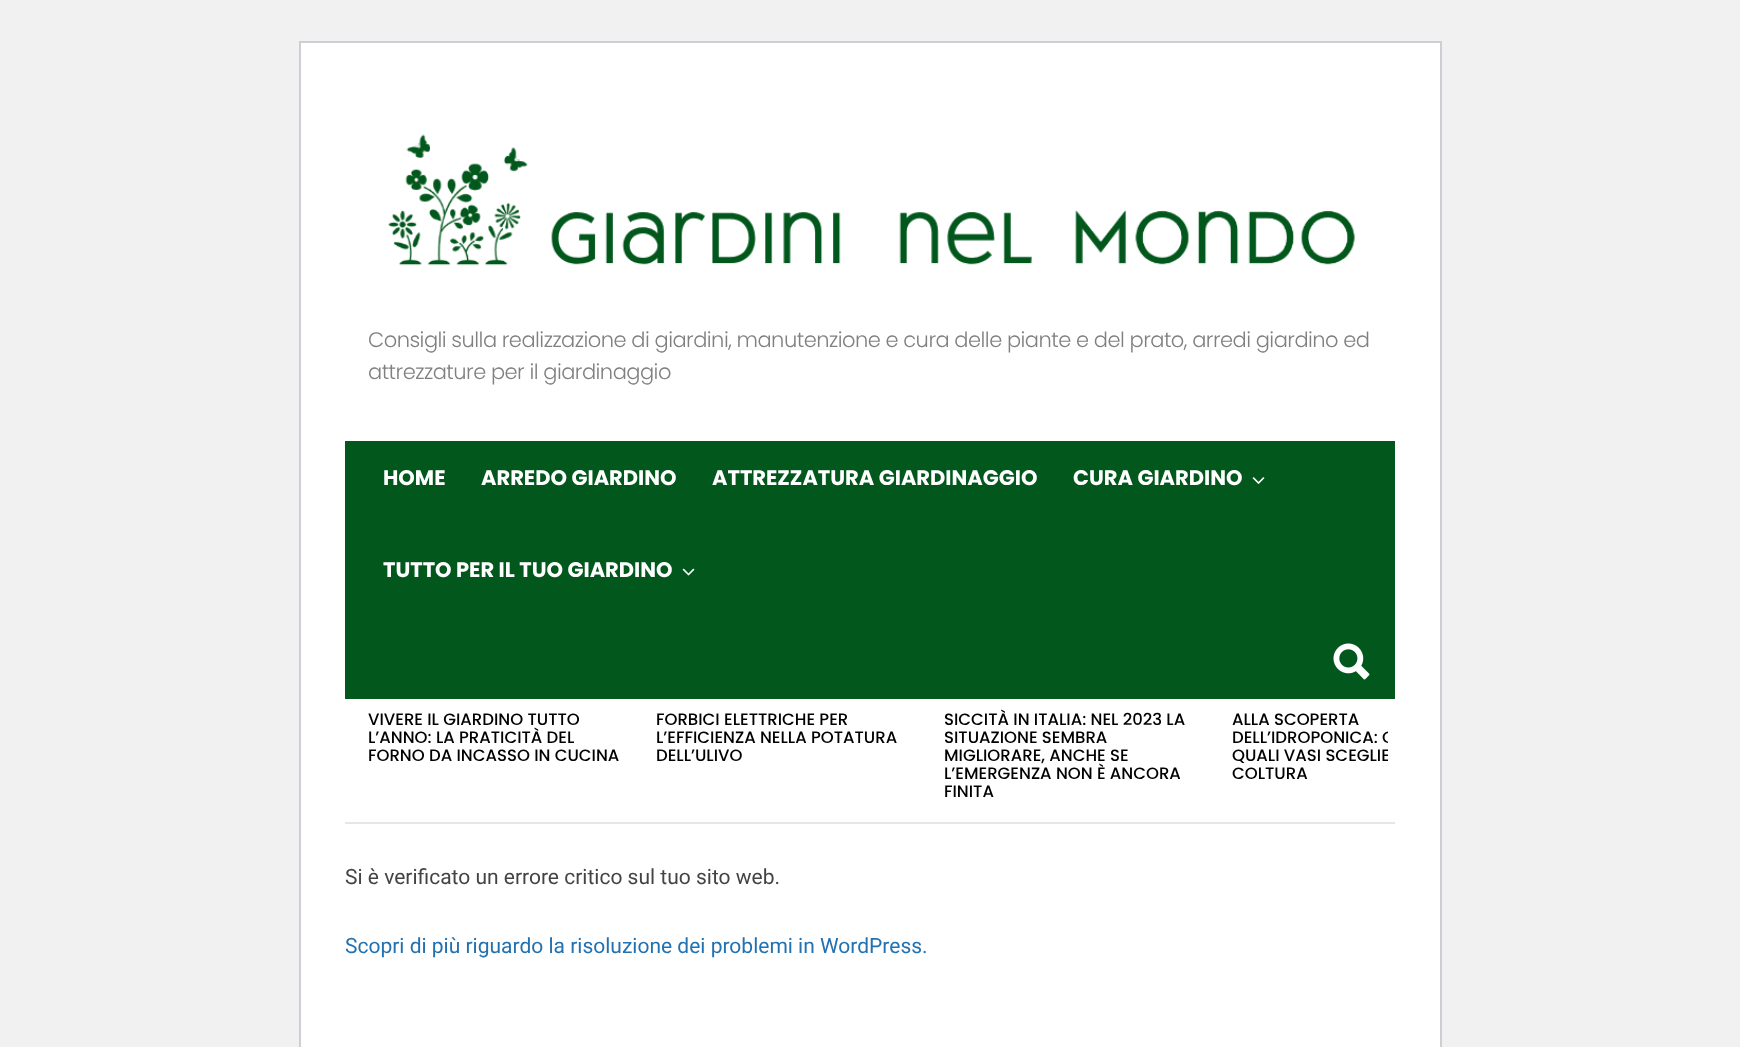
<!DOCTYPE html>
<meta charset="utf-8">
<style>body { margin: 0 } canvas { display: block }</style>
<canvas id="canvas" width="1740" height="1047"></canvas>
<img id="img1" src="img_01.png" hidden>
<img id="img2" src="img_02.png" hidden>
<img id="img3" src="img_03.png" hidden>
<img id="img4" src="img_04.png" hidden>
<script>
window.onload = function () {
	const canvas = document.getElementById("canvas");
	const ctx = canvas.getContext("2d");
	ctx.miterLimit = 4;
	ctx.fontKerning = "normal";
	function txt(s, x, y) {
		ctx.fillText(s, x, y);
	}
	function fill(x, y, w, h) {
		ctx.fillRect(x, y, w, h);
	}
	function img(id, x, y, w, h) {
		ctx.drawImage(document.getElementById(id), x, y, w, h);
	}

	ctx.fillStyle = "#F1F1F1";
	fill(0, 0, 1740, 1047);
	ctx.fillStyle = "#FFFFFF";
	ctx.beginPath();
	ctx.rect(300, 42, 1141, 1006);
	ctx.fill();
	ctx.strokeStyle = "#CCD0D4";
	ctx.lineWidth = 2;
	ctx.stroke();
	img("img1", 388, 134, 967, 132);
	ctx.fillStyle = "#02581C";
	fill(345, 441, 1050, 258);
	img("img2", 1252, 477, 13, 7);
	img("img3", 682, 568, 13, 8);
	img("img4", 1333, 643, 37, 37);
	ctx.fillStyle = "#E6E6E6";
	fill(345, 822, 1050, 2);
	ctx.letterSpacing = "-0.52px";
	ctx.font = "300 21px Poppins";
	ctx.fillStyle = "#808080";
	txt("Consigli sulla realizzazione di giardini, manutenzione e cura delle piante e del prato, arredi giardino ed", 368, 347);
	txt("attrezzature per il giardinaggio", 368, 379);
	ctx.letterSpacing = "0px";
	ctx.font = "bold 21px Poppins";
	ctx.fillStyle = "#FFFFFF";
	txt("HOME", 383, 485);
	txt("ARREDO GIARDINO", 481, 485);
	txt("ATTREZZATURA GIARDINAGGIO", 712, 485);
	txt("CURA GIARDINO", 1073, 485);
	txt("TUTTO PER IL TUO GIARDINO", 383, 577);
	ctx.font = "500 16.5px Poppins";
	ctx.fillStyle = "#000000";
	txt("VIVERE IL GIARDINO TUTTO", 368, 725);
	txt("L’ANNO: LA PRATICITÀ DEL", 368, 743);
	txt("FORNO DA INCASSO IN CUCINA", 368, 761);
	txt("FORBICI ELETTRICHE PER", 656, 725);
	txt("L’EFFICIENZA NELLA POTATURA", 656, 743);
	txt("DELL’ULIVO", 656, 761);
	txt("SICCITÀ IN ITALIA: NEL 2023 LA", 944, 725);
	txt("SITUAZIONE SEMBRA", 944, 743);
	txt("MIGLIORARE, ANCHE SE", 944, 761);
	txt("L’EMERGENZA NON È ANCORA", 944, 779);
	txt("FINITA", 944, 797);
	txt("ALLA SCOPERTA", 1232, 725);
	ctx.save();
	ctx.beginPath();
	ctx.rect(353, 699, 1035, 123);
	ctx.clip();
	txt("DELL’IDROPONICA: C", 1232, 743);
	txt("QUALI VASI SCEGLIE", 1232, 761);
	ctx.restore();
	txt("COLTURA", 1232, 779);
	ctx.font = "21px Roboto";
	ctx.fillStyle = "#444444";
	txt("Si è verificato un errore critico sul tuo sito web.", 345, 884);
	ctx.fillStyle = "#2271B1";
	txt("Scopri di più riguardo la risoluzione dei problemi in WordPress.", 345, 953);
};
</script>
